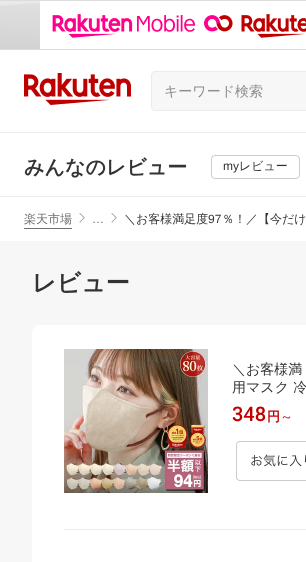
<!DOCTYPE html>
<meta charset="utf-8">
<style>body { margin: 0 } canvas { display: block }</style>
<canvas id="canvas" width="306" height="562"></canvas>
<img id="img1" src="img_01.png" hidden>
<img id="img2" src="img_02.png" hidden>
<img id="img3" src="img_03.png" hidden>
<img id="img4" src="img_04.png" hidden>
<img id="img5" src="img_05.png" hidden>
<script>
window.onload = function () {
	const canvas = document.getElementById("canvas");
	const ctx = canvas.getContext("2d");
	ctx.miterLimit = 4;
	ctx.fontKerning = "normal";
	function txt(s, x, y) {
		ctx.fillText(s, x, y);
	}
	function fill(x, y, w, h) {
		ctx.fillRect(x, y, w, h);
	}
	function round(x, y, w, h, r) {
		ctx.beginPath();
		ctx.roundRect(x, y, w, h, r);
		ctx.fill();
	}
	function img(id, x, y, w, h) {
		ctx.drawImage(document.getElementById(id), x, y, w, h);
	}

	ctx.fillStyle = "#FFFFFF";
	fill(0, 0, 306, 562);
	img("img1", 0, 0, 306, 50);
	ctx.fillStyle = "#EBEBEB";
	fill(0, 132, 306, 1);
	img("img2", 24, 73, 107, 32);
	ctx.fillStyle = "#F7F7F7";
	ctx.beginPath();
	ctx.moveTo(155, 71.5);
	ctx.lineTo(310.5, 71.5);
	ctx.lineTo(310.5, 110.5);
	ctx.lineTo(155, 110.5);
	ctx.bezierCurveTo(153, 110.5, 151.5, 109, 151.5, 107);
	ctx.lineTo(151.5, 75);
	ctx.bezierCurveTo(151.5, 73, 153, 71.5, 155, 71.5);
	ctx.closePath();
	ctx.fill();
	ctx.strokeStyle = "#EBEBEB";
	ctx.stroke();
	ctx.fillStyle = "#EBEBEB";
	fill(0, 196, 306, 1);
	ctx.beginPath();
	ctx.roundRect(211.5, 155.5, 88, 23, 3.5);
	ctx.strokeStyle = "#CCCCCC";
	ctx.stroke();
	ctx.fillStyle = "#717171";
	fill(24, 228, 48, 1);
	img("img3", 79, 213, 6, 10);
	img("img3", 111, 213, 6, 10);
	ctx.fillStyle = "#F7F7F7";
	fill(0, 241, 306, 84);
	fill(0, 325, 40, 237);
	ctx.fillStyle = "#FFFFFF";
	round(32, 325, 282, 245, 8);
	ctx.fillStyle = "#EBEBEB";
	fill(64, 529, 242, 1);
	img("img4", 64, 349, 144, 144);
	img("img5", 236, 441, 70, 40);
	ctx.font = "500 14px WenQuanYi Zen Hei";
	ctx.fillStyle = "#8F8F8F";
	txt("キーワード検索", 164, 96);
	ctx.font = "bold 20px WenQuanYi Zen Hei";
	ctx.fillStyle = "#333333";
	txt("みんなのレビュー", 24, 174);
	ctx.font = "12px Liberation Sans";
	txt("my", 223, 170);
	ctx.font = "500 12px WenQuanYi Zen Hei";
	txt("レビュー", 239, 170);
	ctx.fillStyle = "#717171";
	txt("楽天市場", 24, 223);
	ctx.font = "12px Liberation Sans";
	txt("…", 92, 223);
	ctx.font = "500 12px WenQuanYi Zen Hei";
	ctx.fillStyle = "#333333";
	txt("＼お客様満足度", 124, 223);
	ctx.font = "12px Liberation Sans";
	txt("97", 208, 223);
	ctx.font = "500 12px WenQuanYi Zen Hei";
	txt("％！／【今だけ", 222, 223);
	ctx.font = "bold 24px WenQuanYi Zen Hei";
	txt("レビュー", 32, 291);
	ctx.font = "500 14px WenQuanYi Zen Hei";
	txt("＼お客様満", 232, 374);
	txt("用マスク 冷", 232, 392);
	ctx.font = "500 20px Roboto";
	ctx.fillStyle = "#BF0000";
	txt("348", 232, 421);
	ctx.font = "bold 13px WenQuanYi Zen Hei";
	txt("円", 267, 421);
	ctx.font = "500 13px WenQuanYi Zen Hei";
	txt("～", 280, 421);
};
</script>
